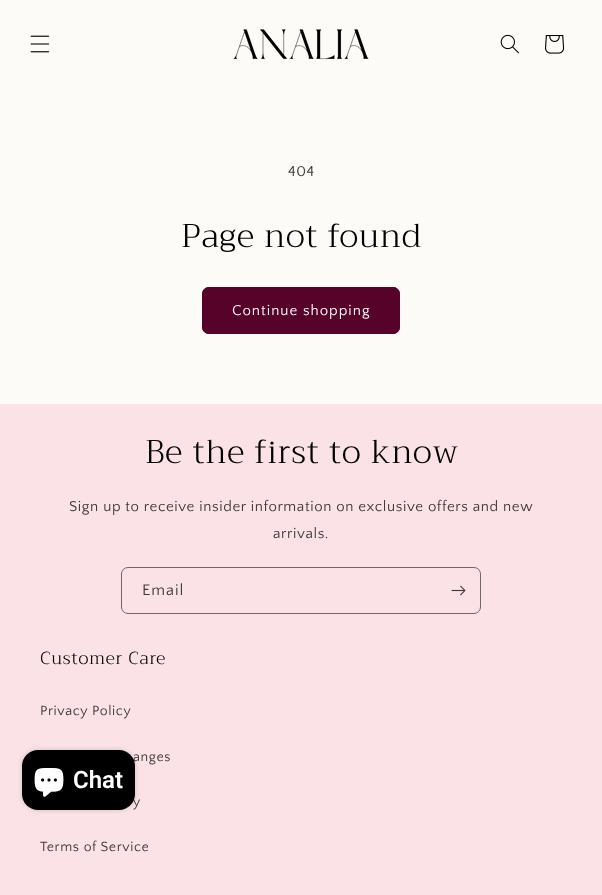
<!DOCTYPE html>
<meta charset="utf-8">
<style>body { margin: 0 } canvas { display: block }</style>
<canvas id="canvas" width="602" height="895"></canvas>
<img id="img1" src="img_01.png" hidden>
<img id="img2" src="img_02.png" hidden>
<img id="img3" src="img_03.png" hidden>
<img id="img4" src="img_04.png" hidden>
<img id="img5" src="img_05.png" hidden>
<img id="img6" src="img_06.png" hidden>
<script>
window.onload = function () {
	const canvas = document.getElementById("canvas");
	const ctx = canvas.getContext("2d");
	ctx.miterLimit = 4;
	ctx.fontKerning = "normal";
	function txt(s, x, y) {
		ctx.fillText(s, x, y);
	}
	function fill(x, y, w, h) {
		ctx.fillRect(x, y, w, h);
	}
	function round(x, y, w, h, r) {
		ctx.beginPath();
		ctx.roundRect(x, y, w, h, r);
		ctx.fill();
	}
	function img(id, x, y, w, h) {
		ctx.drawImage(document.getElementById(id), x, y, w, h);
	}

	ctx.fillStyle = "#FDFBF7";
	fill(0, 0, 602, 895);
	img("img1", 30, 35, 20, 18);
	img("img2", 233, 29, 136, 31);
	img("img3", 500, 34, 19, 20);
	img("img4", 545, 35, 20, 19);
	ctx.fillStyle = "#570228";
	round(202, 287, 198, 47, 7);
	ctx.beginPath();
	ctx.roundRect(202.5, 287.5, 197, 46, 6.5);
	ctx.strokeStyle = "#570228";
	ctx.stroke();
	ctx.fillStyle = "#FAE2E6";
	fill(0, 404, 602, 491);
	ctx.beginPath();
	ctx.roundRect(121.5, 567.5, 359, 46, 6.5);
	ctx.strokeStyle = "#716668";
	ctx.stroke();
	img("img5", 451, 585, 15, 11);
	ctx.fillStyle = "rgba(0, 0, 0, 0.15)";
	ctx.filter = "blur(2.5px)";
	ctx.beginPath();
	ctx.roundRect(22, 750, 113, 60, 16);
	ctx.fill();
	ctx.filter = "none";
	ctx.letterSpacing = "0.6px";
	ctx.font = "15px Quattrocento Sans";
	ctx.fillStyle = "#3F3F3E";
	txt("404", 288, 176);
	ctx.letterSpacing = "0.7px";
	ctx.font = "300 33px Trirong";
	ctx.fillStyle = "#000000";
	txt("Page not found", 181, 247);
	ctx.letterSpacing = "1px";
	ctx.font = "15px Quattrocento Sans";
	ctx.fillStyle = "#FFFFFF";
	txt("Continue shopping", 232, 315);
	ctx.letterSpacing = "0.7px";
	ctx.font = "300 33px Trirong";
	ctx.fillStyle = "#000000";
	txt("Be the first to know", 145, 463);
	ctx.letterSpacing = "0.6px";
	ctx.font = "15px Quattrocento Sans";
	ctx.fillStyle = "#3F393A";
	txt("Sign up to receive insider information on exclusive offers and new", 69, 511);
	txt("arrivals.", 273, 538);
	ctx.letterSpacing = "1px";
	ctx.font = "16px Quattrocento Sans";
	txt("Email", 142, 595);
	ctx.letterSpacing = "0.7px";
	ctx.font = "300 17.5px Trirong";
	ctx.fillStyle = "#000000";
	txt("Customer Care", 40, 664);
	ctx.letterSpacing = "0.6px";
	ctx.font = "14px Quattrocento Sans";
	ctx.fillStyle = "#3F393A";
	txt("Privacy Policy", 40, 715);
	txt("anges", 133, 761);
	txt("y", 133, 806);
	txt("Terms of Service", 40, 851);
	ctx.fillStyle = "#000000";
	round(22, 750, 113, 60, 16);
	img("img6", 34, 768, 30, 29);
	ctx.letterSpacing = "0px";
	ctx.font = "600 24px Roboto";
	ctx.fillStyle = "#FFFFFF";
	txt("Chat", 73, 788);
};
</script>
